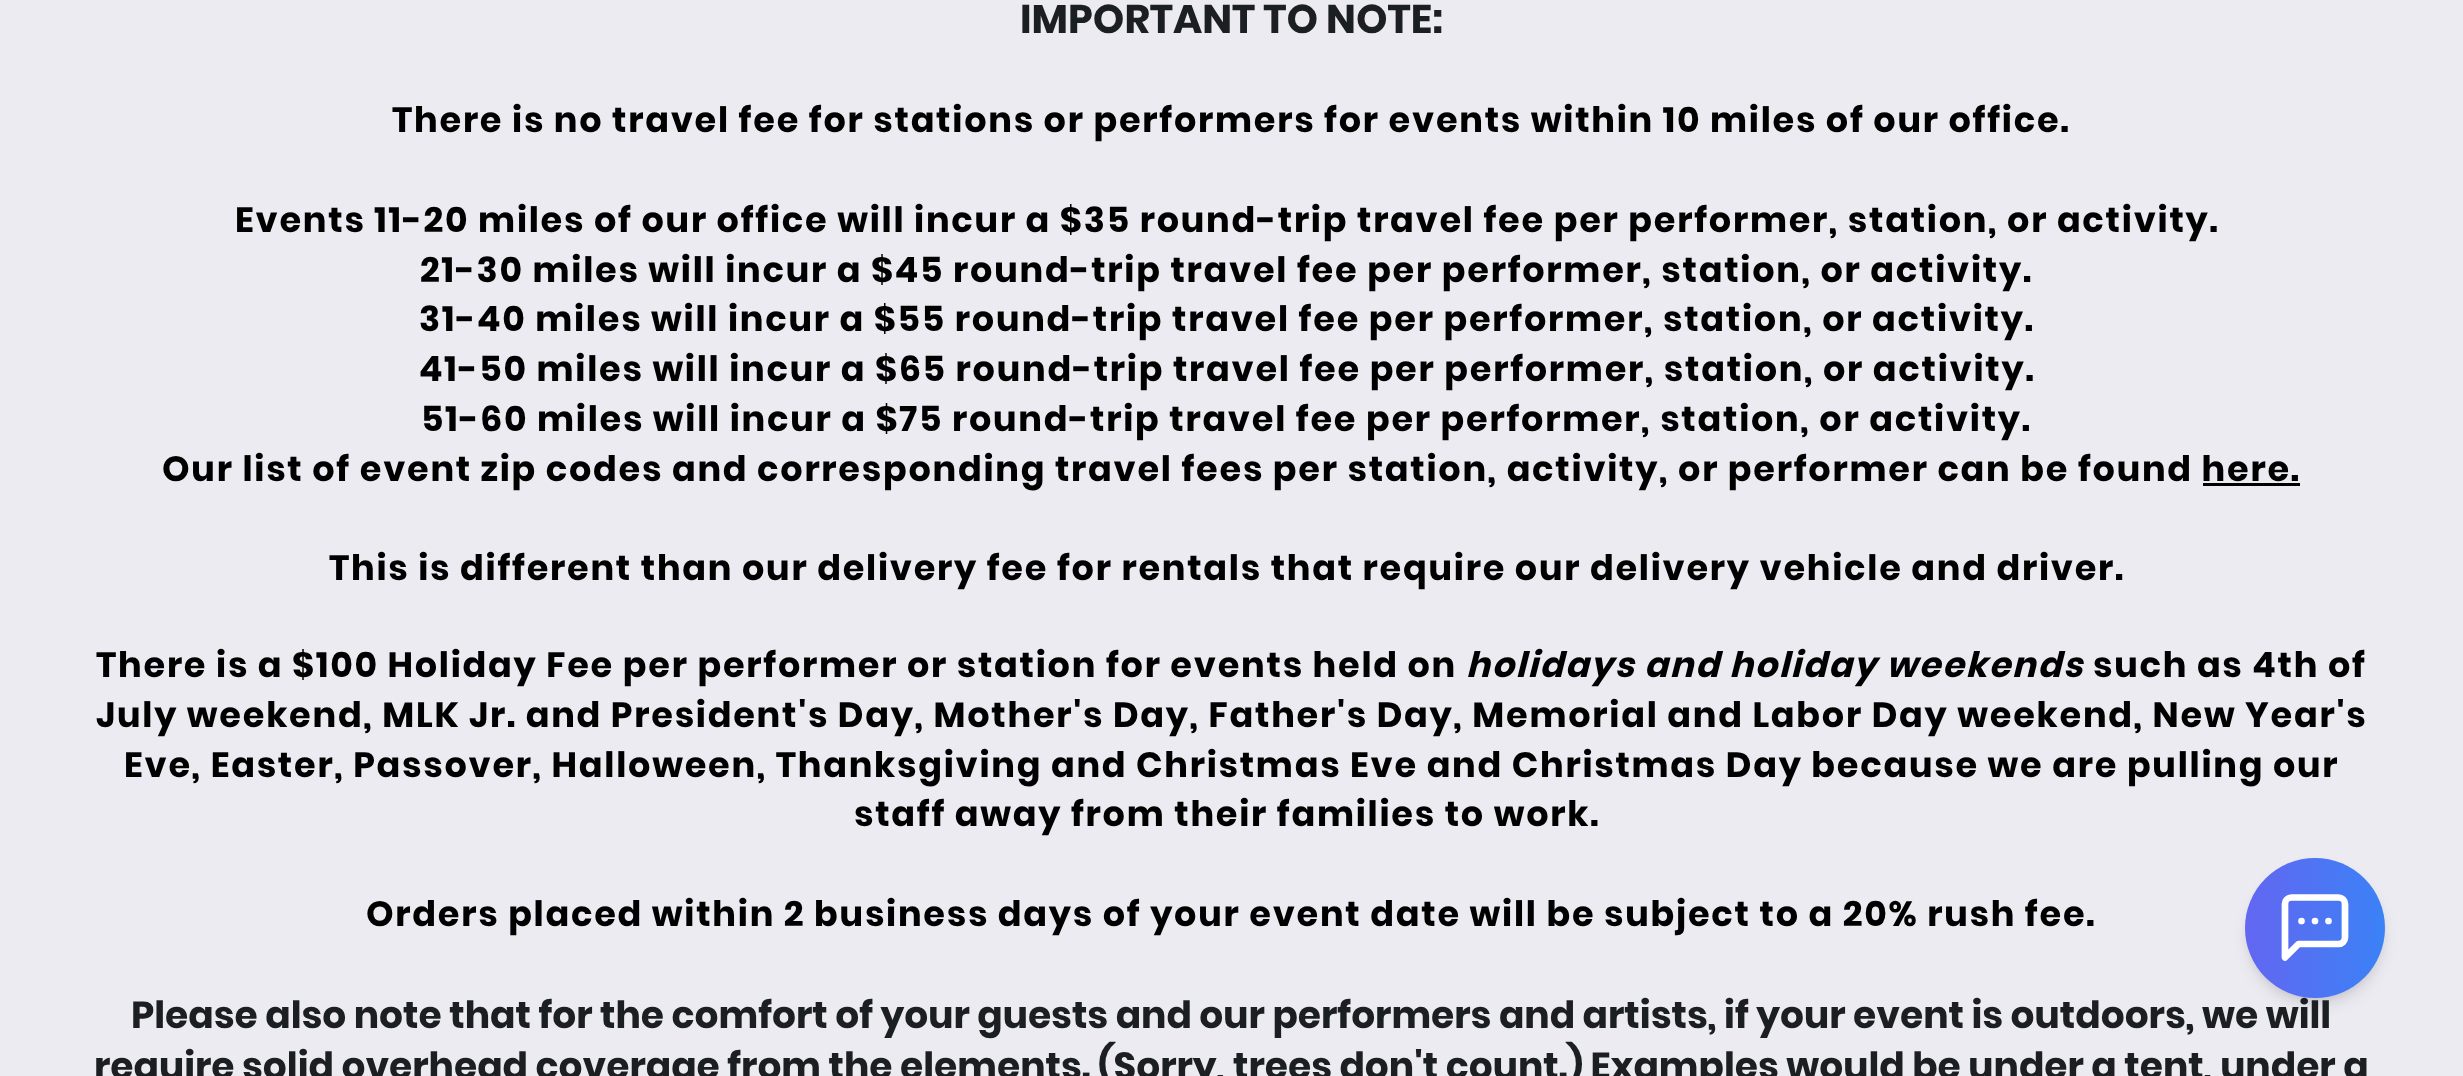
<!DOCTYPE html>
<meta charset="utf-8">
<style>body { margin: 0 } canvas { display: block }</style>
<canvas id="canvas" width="2463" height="1076"></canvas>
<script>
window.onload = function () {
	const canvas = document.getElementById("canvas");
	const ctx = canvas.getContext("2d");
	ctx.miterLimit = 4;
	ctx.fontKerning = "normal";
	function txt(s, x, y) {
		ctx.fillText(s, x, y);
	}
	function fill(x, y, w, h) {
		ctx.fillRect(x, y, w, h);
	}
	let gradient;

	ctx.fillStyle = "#EDEBF2";
	fill(0, 0, 2463, 1076);
	ctx.fillStyle = "#000000";
	fill(2203, 483, 97, 3);
	ctx.fillStyle = "rgba(0, 0, 0, 0.1)";
	ctx.filter = "blur(5px)";
	ctx.beginPath();
	ctx.roundRect(2250, 868, 130, 130, 65);
	ctx.fill();
	ctx.filter = "none";
	ctx.filter = "blur(7.5px)";
	ctx.beginPath();
	ctx.roundRect(2248, 870, 135, 135, 67.5);
	ctx.fill();
	ctx.filter = "none";
	ctx.font = "bold 40px Poppins";
	ctx.fillStyle = "#1B1F21";
	txt("IMPORTANT TO NOTE:", 1020, 33);
	ctx.letterSpacing = "1.75px";
	ctx.font = "bold 35px Poppins";
	ctx.fillStyle = "#000000";
	txt("There is no travel fee for stations or performers for events within 10 miles of our office.", 392, 132);
	txt("Events 11-20 miles of our office will incur a $35 round-trip travel fee per performer, station, or activity.", 235, 232);
	txt("21-30 miles will incur a $45 round-trip travel fee per performer, station, or activity.", 420, 282);
	txt("31-40 miles will incur a $55 round-trip travel fee per performer, station, or activity.", 419, 331);
	txt("41-50 miles will incur a $65 round-trip travel fee per performer, station, or activity.", 419, 381);
	txt("51-60 miles will incur a $75 round-trip travel fee per performer, station, or activity.", 421, 431);
	txt("Our list of event zip codes and corresponding travel fees per station, activity, or performer can be found here.", 162, 481);
	txt("This is different than our delivery fee for rentals that require our delivery vehicle and driver.", 329, 580);
	txt("There is a $100 Holiday Fee per performer or station for events held on", 96, 677);
	ctx.font = "italic bold 35px Poppins";
	txt("holidays and holiday weekends", 1466, 677);
	ctx.font = "bold 35px Poppins";
	txt("such as 4th of", 2093, 677);
	txt("July weekend, MLK Jr. and President's Day, Mother's Day, Father's Day, Memorial and Labor Day weekend, New Year's", 96, 727);
	txt("Eve, Easter, Passover, Halloween, Thanksgiving and Christmas Eve and Christmas Day because we are pulling our", 124, 777);
	txt("staff away from their families to work.", 854, 826);
	txt("Orders placed within 2 business days of your event date will be subject to a 20% rush fee.", 366, 926);
	ctx.letterSpacing = "0px";
	ctx.font = "bold 37.5px Poppins";
	ctx.fillStyle = "#1B1F21";
	txt("Please also note that for the comfort of your guests and our performers and artists, if your event is outdoors, we will", 131, 1028);
	txt("require solid overhead coverage from the elements. (Sorry, trees don't count.) Examples would be under a tent, under a", 94, 1079);
	gradient = ctx.createLinearGradient(2245, 928, 2385, 928);
	gradient.addColorStop(0, "#6366F1");
	gradient.addColorStop(1, "#3B82F6");
	ctx.fillStyle = gradient;
	ctx.beginPath();
	ctx.arc(2315, 928, 70, 0, Math.PI * 2);
	ctx.fill();
	ctx.beginPath();
	ctx.moveTo(2345, 937.5);
	ctx.bezierCurveTo(2345, 941, 2342, 944, 2338.5, 944);
	ctx.lineTo(2298.5, 944);
	ctx.lineTo(2285, 957.5);
	ctx.lineTo(2285, 904);
	ctx.bezierCurveTo(2285, 900.5, 2288, 897.5, 2291.5, 897.5);
	ctx.lineTo(2338.5, 897.5);
	ctx.bezierCurveTo(2342, 897.5, 2345, 900.5, 2345, 904);
	ctx.closePath();
	ctx.strokeStyle = "#FFFFFF";
	ctx.lineWidth = 6.7;
	ctx.lineCap = "round";
	ctx.lineJoin = "round";
	ctx.stroke();
	ctx.beginPath();
	ctx.moveTo(2301.5, 921);
	ctx.lineTo(2301.5, 921);
	ctx.moveTo(2315, 921);
	ctx.lineTo(2315, 921);
	ctx.moveTo(2328.5, 921);
	ctx.lineTo(2328.5, 921);
	ctx.stroke();
};
</script>
